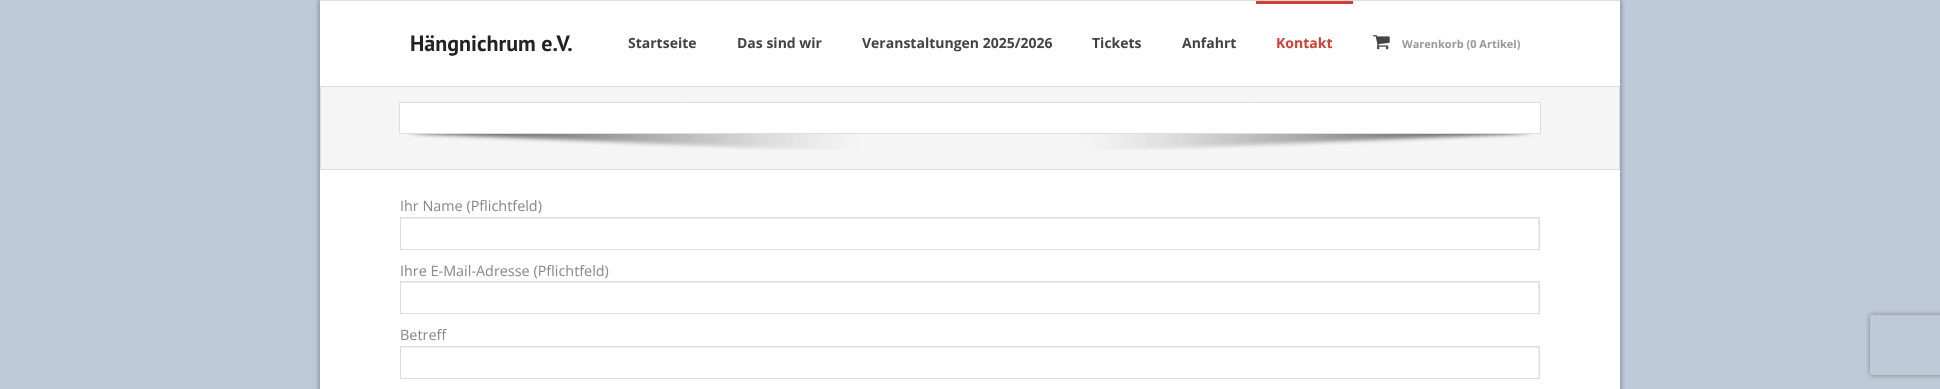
<!DOCTYPE html>
<meta charset="utf-8">
<style>body { margin: 0 } canvas { display: block }</style>
<canvas id="canvas" width="1940" height="389"></canvas>
<img id="img1" src="img_01.png" hidden>
<img id="img2" src="img_02.png" hidden>
<script>
window.onload = function () {
	const canvas = document.getElementById("canvas");
	const ctx = canvas.getContext("2d");
	ctx.miterLimit = 4;
	ctx.fontKerning = "normal";
	function txt(s, x, y) {
		ctx.fillText(s, x, y);
	}
	function fill(x, y, w, h) {
		ctx.fillRect(x, y, w, h);
	}
	function img(id, x, y, w, h) {
		ctx.drawImage(document.getElementById(id), x, y, w, h);
	}

	ctx.fillStyle = "#BECAD8";
	fill(0, 0, 1940, 389);
	ctx.fillStyle = "rgba(0, 0, 0, 0.3)";
	ctx.filter = "blur(2.5px)";
	ctx.beginPath();
	ctx.rect(319, -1, 1302, 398);
	ctx.fill();
	ctx.filter = "none";
	ctx.fillStyle = "#FFFFFF";
	fill(320, 1, 1300, 388);
	ctx.fillStyle = "#DDDDDD";
	fill(320, 86, 1300, 1);
	fill(320, 0, 1300, 1);
	ctx.fillStyle = "#D33D33";
	fill(1256, 1, 97, 3);
	img("img1", 1373, 35, 17, 15);
	ctx.fillStyle = "#F5F5F5";
	fill(321, 87, 1298, 82);
	ctx.fillStyle = "#DDDDDD";
	fill(1619, 87, 1, 83);
	fill(320, 169, 1300, 1);
	fill(320, 87, 1, 83);
	ctx.fillStyle = "#FFFFFF";
	ctx.beginPath();
	ctx.rect(399.5, 102.5, 1141, 31);
	ctx.fill();
	ctx.strokeStyle = "#DDDDDD";
	ctx.stroke();
	img("img2", 407, 134, 1126, 16);
	ctx.save();
	ctx.beginPath();
	ctx.rect(401, 218, 1138, 31);
	ctx.clip();
	ctx.fillStyle = "#EEEEEE";
	ctx.beginPath();
	ctx.moveTo(302, 119);
	ctx.lineTo(1638, 119);
	ctx.lineTo(1638, 348);
	ctx.lineTo(302, 348);
	ctx.closePath();
	ctx.moveTo(400, 219);
	ctx.lineTo(1538, 219);
	ctx.lineTo(1538, 250);
	ctx.lineTo(400, 250);
	ctx.closePath();
	ctx.fill("evenodd");
	ctx.restore();
	ctx.strokeRect(400.5, 217.5, 1139, 32);
	ctx.save();
	ctx.beginPath();
	ctx.rect(401, 282, 1138, 31);
	ctx.clip();
	ctx.fillStyle = "#EEEEEE";
	ctx.beginPath();
	ctx.moveTo(302, 183);
	ctx.lineTo(1638, 183);
	ctx.lineTo(1638, 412);
	ctx.lineTo(302, 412);
	ctx.closePath();
	ctx.moveTo(400, 283);
	ctx.lineTo(1538, 283);
	ctx.lineTo(1538, 314);
	ctx.lineTo(400, 314);
	ctx.closePath();
	ctx.fill("evenodd");
	ctx.restore();
	ctx.strokeRect(400.5, 281.5, 1139, 32);
	ctx.save();
	ctx.beginPath();
	ctx.rect(401, 347, 1138, 31);
	ctx.clip();
	ctx.fillStyle = "#EEEEEE";
	ctx.beginPath();
	ctx.moveTo(302, 248);
	ctx.lineTo(1638, 248);
	ctx.lineTo(1638, 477);
	ctx.lineTo(302, 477);
	ctx.closePath();
	ctx.moveTo(400, 348);
	ctx.lineTo(1538, 348);
	ctx.lineTo(1538, 379);
	ctx.lineTo(400, 379);
	ctx.closePath();
	ctx.fill("evenodd");
	ctx.restore();
	ctx.strokeRect(400.5, 346.5, 1139, 32);
	ctx.save();
	ctx.beginPath();
	ctx.moveTo(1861, 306);
	ctx.lineTo(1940, 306);
	ctx.lineTo(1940, 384);
	ctx.lineTo(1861, 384);
	ctx.closePath();
	ctx.moveTo(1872, 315);
	ctx.lineTo(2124, 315);
	ctx.bezierCurveTo(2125, 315, 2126, 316, 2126, 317);
	ctx.lineTo(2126, 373);
	ctx.bezierCurveTo(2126, 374, 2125, 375, 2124, 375);
	ctx.lineTo(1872, 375);
	ctx.bezierCurveTo(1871, 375, 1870, 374, 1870, 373);
	ctx.lineTo(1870, 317);
	ctx.bezierCurveTo(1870, 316, 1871, 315, 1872, 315);
	ctx.closePath();
	ctx.clip("evenodd");
	ctx.fillStyle = "#808080";
	ctx.filter = "blur(2.5px)";
	ctx.beginPath();
	ctx.roundRect(1870, 315, 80, 60, 2);
	ctx.fill();
	ctx.filter = "none";
	ctx.restore();
	ctx.font = "bold 22px PT Sans";
	ctx.fillStyle = "#222222";
	txt("Hängnichrum e.V.", 410, 51);
	ctx.font = "bold 14px Open Sans";
	ctx.fillStyle = "#444444";
	txt("Startseite", 628, 48);
	txt("Das sind wir", 737, 48);
	txt("Veranstaltungen 2025/2026", 862, 48);
	txt("Tickets", 1092, 48);
	txt("Anfahrt", 1182, 48);
	ctx.fillStyle = "#D33D33";
	txt("Kontakt", 1276, 48);
	ctx.font = "bold 11px Open Sans";
	ctx.fillStyle = "#999999";
	txt("Warenkorb (0 Artikel)", 1402, 48);
	ctx.font = "14.4px Open Sans";
	ctx.fillStyle = "#888888";
	txt("Ihr Name (Pflichtfeld)", 400, 211);
	txt("Ihre E-Mail-Adresse (Pflichtfeld)", 400, 276);
	txt("Betreff", 400, 340);
};
</script>
